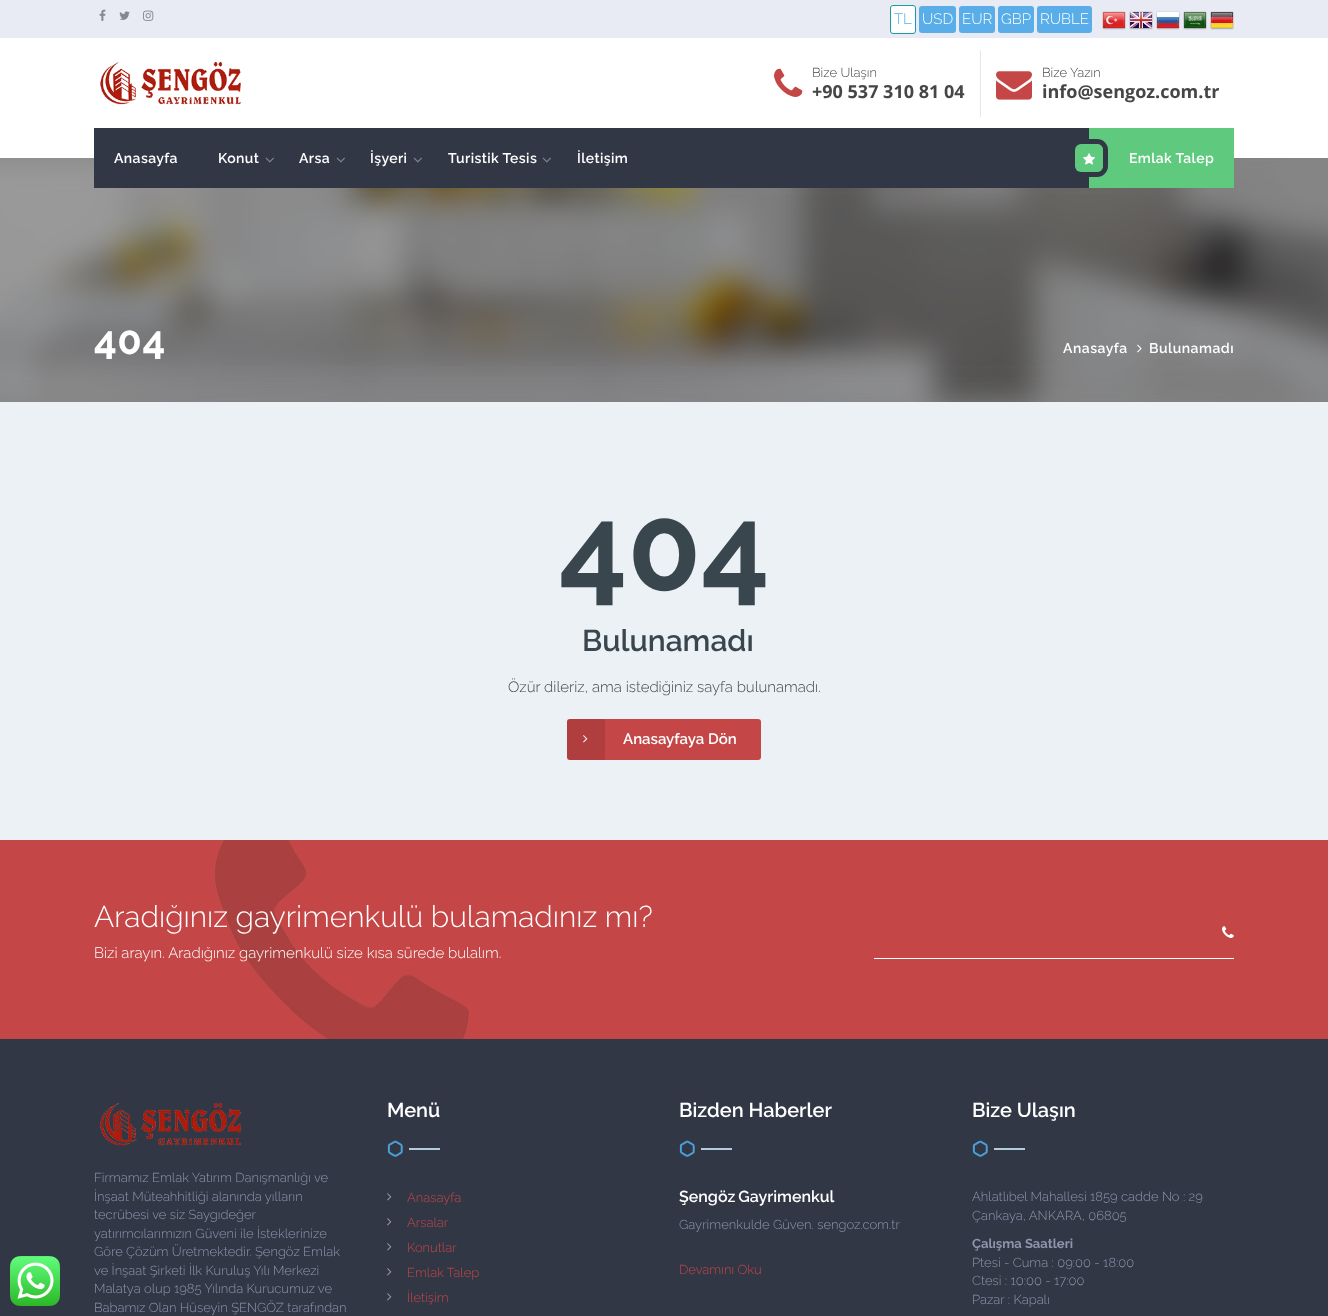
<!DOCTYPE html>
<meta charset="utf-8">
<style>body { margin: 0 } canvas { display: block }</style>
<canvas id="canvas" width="1328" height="1316"></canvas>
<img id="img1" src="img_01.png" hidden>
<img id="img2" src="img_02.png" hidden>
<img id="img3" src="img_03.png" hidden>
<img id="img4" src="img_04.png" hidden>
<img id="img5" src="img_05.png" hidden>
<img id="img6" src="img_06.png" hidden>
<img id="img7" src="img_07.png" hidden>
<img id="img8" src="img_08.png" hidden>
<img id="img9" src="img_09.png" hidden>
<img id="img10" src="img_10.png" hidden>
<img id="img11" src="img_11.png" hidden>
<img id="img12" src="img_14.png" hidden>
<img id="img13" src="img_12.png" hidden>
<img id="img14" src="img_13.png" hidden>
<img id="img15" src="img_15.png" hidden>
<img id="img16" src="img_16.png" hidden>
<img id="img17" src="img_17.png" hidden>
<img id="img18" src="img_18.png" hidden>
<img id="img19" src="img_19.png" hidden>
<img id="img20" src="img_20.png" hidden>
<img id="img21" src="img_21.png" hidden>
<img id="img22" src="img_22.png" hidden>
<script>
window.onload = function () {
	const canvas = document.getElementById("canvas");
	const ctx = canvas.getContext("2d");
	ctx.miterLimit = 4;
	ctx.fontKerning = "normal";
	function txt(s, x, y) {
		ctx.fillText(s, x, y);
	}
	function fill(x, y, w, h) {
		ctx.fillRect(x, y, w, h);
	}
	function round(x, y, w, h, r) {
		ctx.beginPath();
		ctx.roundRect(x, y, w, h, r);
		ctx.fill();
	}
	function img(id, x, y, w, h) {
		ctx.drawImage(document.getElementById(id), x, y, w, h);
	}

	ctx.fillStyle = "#EBF1F5";
	fill(0, 0, 1328, 1316);
	ctx.fillStyle = "#FFFFFF";
	fill(0, 38, 1328, 120);
	ctx.fillStyle = "#E8EBF3";
	fill(0, 0, 1328, 38);
	img("img1", 99, 9, 7, 12);
	img("img2", 119, 11, 11, 9);
	img("img3", 143, 10, 11, 11);
	ctx.fillStyle = "#FFFFFF";
	ctx.beginPath();
	ctx.roundRect(890.5, 5.5, 25, 28, 2.5);
	ctx.fill();
	ctx.strokeStyle = "#189CA1";
	ctx.stroke();
	ctx.fillStyle = "#59AEE9";
	round(919, 6, 37, 27, 3);
	round(959, 6, 36, 27, 3);
	round(998, 6, 36, 27, 3);
	round(1037, 6, 55, 27, 3);
	img("img4", 1102, 11, 24, 19);
	img("img5", 1129, 11, 24, 19);
	img("img6", 1156, 11, 24, 19);
	img("img7", 1183, 11, 24, 19);
	img("img8", 1210, 11, 24, 19);
	img("img9", 100, 61, 141, 44);
	img("img10", 774, 68, 29, 29);
	ctx.fillStyle = "#E6E6E6";
	fill(980, 50, 1, 67);
	img("img11", 996, 71, 36, 29);
	ctx.fillStyle = "#858585";
	fill(0, 158, 1328, 244);
	img("img12", 0, 158, 1328, 244);
	ctx.fillStyle = "#323746";
	fill(94, 128, 995, 60);
	img("img13", 265, 157, 9, 6);
	img("img13", 336, 157, 9, 6);
	img("img13", 413, 157, 9, 6);
	img("img13", 542, 157, 9, 6);
	ctx.fillStyle = "#5FC97E";
	fill(1089, 128, 145, 60);
	ctx.beginPath();
	ctx.roundRect(1072.5, 141.5, 33, 33, 8.5);
	ctx.strokeStyle = "#323746";
	ctx.lineWidth = 5;
	ctx.stroke();
	round(1075, 144, 28, 28, 6);
	img("img14", 1083, 153, 12, 12);
	img("img15", 1137, 344, 5, 9);
	ctx.fillStyle = "#C44646";
	round(567, 719, 194, 41, 3);
	ctx.fillStyle = "rgba(0, 0, 0, 0.1)";
	round(567, 719, 38, 41, 2);
	img("img16", 583, 735, 5, 8);
	ctx.fillStyle = "#C44646";
	fill(0, 840, 1328, 199);
	img("img17", 214, 840, 256, 199);
	img("img18", 1222, 926, 12, 12);
	ctx.fillStyle = "#FFFFFF";
	fill(874, 958, 360, 1);
	ctx.fillStyle = "#323746";
	fill(0, 1039, 1328, 277);
	img("img19", 10, 1256, 50, 50);
	img("img20", 100, 1102, 141, 44);
	img("img21", 387, 1140, 53, 17);
	img("img22", 387, 1193, 5, 8);
	img("img22", 387, 1218, 5, 8);
	img("img22", 387, 1243, 5, 8);
	img("img22", 387, 1268, 5, 8);
	img("img22", 387, 1293, 5, 8);
	img("img21", 679, 1140, 53, 17);
	img("img21", 972, 1140, 53, 17);
	ctx.font = "300 15px Raleway";
	ctx.fillStyle = "#59AEE9";
	txt("TL", 894, 24);
	ctx.fillStyle = "#FFFFFF";
	txt("USD", 922, 24);
	txt("EUR", 962, 24);
	txt("GBP", 1001, 24);
	txt("RUBLE", 1040, 24);
	ctx.font = "300 13px Raleway";
	ctx.fillStyle = "#464646";
	txt("Bize Ulaşın", 812, 77);
	ctx.font = "bold 18px Open Sans";
	txt("+90 537 310 81 04", 812, 98);
	ctx.font = "300 13px Raleway";
	txt("Bize Yazın", 1042, 77);
	ctx.font = "bold 18px Open Sans";
	txt("info@sengoz.com.tr", 1042, 98);
	ctx.letterSpacing = "0.4px";
	ctx.font = "600 14px Raleway";
	ctx.fillStyle = "#FFFFFF";
	txt("Anasayfa", 114, 163);
	txt("Konut", 218, 163);
	txt("Arsa", 299, 163);
	txt("İşyeri", 370, 163);
	txt("Turistik Tesis", 448, 163);
	txt("İletişim", 577, 163);
	txt("Emlak Talep", 1129, 163);
	ctx.letterSpacing = "0.5px";
	ctx.font = "bold 40px Raleway";
	txt("404", 94, 354);
	ctx.font = "600 14px Raleway";
	txt("Anasayfa", 1063, 353);
	txt("Bulunamadı", 1149, 353);
	ctx.letterSpacing = "0px";
	ctx.font = "bold 120px Raleway";
	ctx.fillStyle = "#3A464E";
	txt("404", 559, 590);
	ctx.font = "600 30px Raleway";
	txt("Bulunamadı", 582, 651);
	ctx.font = "300 15px Raleway";
	ctx.fillStyle = "#464646";
	txt("Özür dileriz, ama istediğiniz sayfa bulunamadı.", 508, 692);
	ctx.font = "600 15px Raleway";
	ctx.fillStyle = "#FFFFFF";
	txt("Anasayfaya Dön", 623, 744);
	ctx.font = "300 30px Raleway";
	txt("Aradığınız gayrimenkulü bulamadınız mı?", 94, 927);
	ctx.font = "300 15px Raleway";
	txt("Bizi arayın. Aradığınız gayrimenkulü size kısa sürede bulalım.", 94, 958);
	ctx.font = "300 13px Raleway";
	ctx.fillStyle = "#8E95AC";
	txt("Firmamız Emlak Yatırım Danışmanlığı ve", 94, 1182);
	txt("İnşaat Müteahhitliği alanında yılların", 94, 1201);
	txt("tecrübesi ve siz Saygıdeğer", 94, 1219);
	txt("yatırımcılarımızın Güveni ile İsteklerinize", 94, 1238);
	txt("Göre Çözüm Üretmektedir. Şengöz Emlak", 94, 1256);
	txt("ve İnşaat Şirketi İlk Kuruluş Yılı Merkezi", 94, 1275);
	txt("Malatya olup 1985 Yılında Kurucumuz ve", 94, 1293);
	txt("Babamız Olan Hüseyin ŞENGÖZ tarafından", 94, 1312);
	ctx.font = "600 20px Raleway";
	ctx.fillStyle = "#FFFFFF";
	txt("Menü", 387, 1117);
	ctx.font = "300 13px Raleway";
	ctx.fillStyle = "#C44646";
	txt("Anasayfa", 407, 1202);
	txt("Arsalar", 407, 1227);
	txt("Konutlar", 407, 1252);
	txt("Emlak Talep", 407, 1277);
	txt("İletişim", 407, 1302);
	ctx.font = "600 20px Raleway";
	ctx.fillStyle = "#FFFFFF";
	txt("Bizden Haberler", 679, 1117);
	ctx.wordSpacing = "-1px";
	ctx.font = "600 16px Raleway";
	txt("Şengöz Gayrimenkul", 679, 1202);
	ctx.wordSpacing = "0px";
	ctx.font = "300 13px Raleway";
	ctx.fillStyle = "#8E95AC";
	txt("Gayrimenkulde Güven. sengoz.com.tr", 679, 1229);
	ctx.fillStyle = "#C44646";
	txt("Devamını Oku", 679, 1274);
	ctx.font = "600 20px Raleway";
	ctx.fillStyle = "#FFFFFF";
	txt("Bize Ulaşın", 972, 1117);
	ctx.font = "300 13px Raleway";
	ctx.fillStyle = "#8E95AC";
	txt("Ahlatlıbel Mahallesi 1859 cadde No : 29", 972, 1201);
	txt("Çankaya, ANKARA, 06805", 972, 1220);
	ctx.font = "bold 13px Raleway";
	txt("Çalışma Saatleri", 972, 1248);
	ctx.font = "300 13px Raleway";
	txt("Ptesi - Cuma : 09:00 - 18:00", 972, 1267);
	txt("Ctesi : 10:00 - 17:00", 972, 1285);
	txt("Pazar : Kapalı", 972, 1304);
};
</script>
